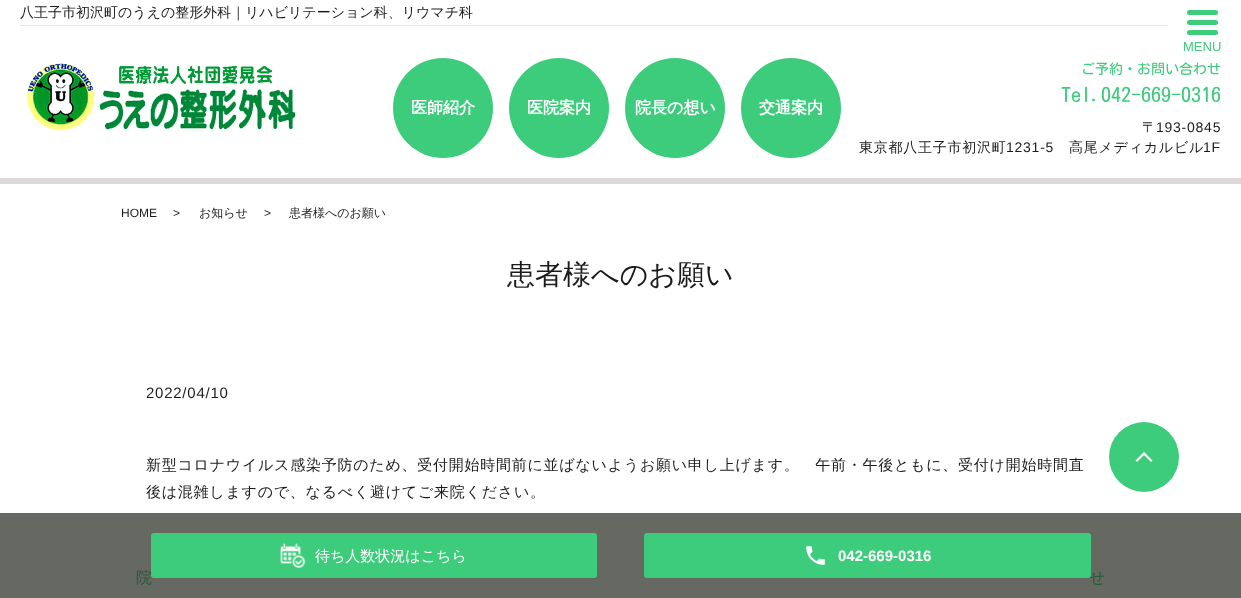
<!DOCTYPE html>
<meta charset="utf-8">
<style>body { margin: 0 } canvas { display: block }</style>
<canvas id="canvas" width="1241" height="598"></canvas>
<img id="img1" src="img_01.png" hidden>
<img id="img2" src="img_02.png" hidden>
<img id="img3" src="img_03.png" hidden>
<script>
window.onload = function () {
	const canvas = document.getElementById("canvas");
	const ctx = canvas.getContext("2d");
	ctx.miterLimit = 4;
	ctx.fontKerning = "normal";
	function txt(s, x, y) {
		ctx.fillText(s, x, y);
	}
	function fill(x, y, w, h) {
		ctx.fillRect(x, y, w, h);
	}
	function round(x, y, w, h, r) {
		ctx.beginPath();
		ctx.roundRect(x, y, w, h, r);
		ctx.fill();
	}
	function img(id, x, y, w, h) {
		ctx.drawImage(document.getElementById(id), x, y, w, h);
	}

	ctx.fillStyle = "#FFFFFF";
	fill(0, 0, 1241, 598);
	ctx.fillStyle = "#656962";
	fill(0, 513, 1241, 85);
	ctx.fillStyle = "#DED9D9";
	fill(0, 178, 1241, 6);
	ctx.fillStyle = "#E6E6E6";
	fill(20, 25, 1148, 1);
	img("img1", 27, 63, 269, 68);
	ctx.fillStyle = "#3DCC7B";
	ctx.beginPath();
	ctx.arc(443, 108, 50, 0, Math.PI * 2);
	ctx.fill();
	ctx.beginPath();
	ctx.arc(559, 108, 50, 0, Math.PI * 2);
	ctx.fill();
	ctx.beginPath();
	ctx.arc(675, 108, 50, 0, Math.PI * 2);
	ctx.fill();
	ctx.beginPath();
	ctx.arc(791, 108, 50, 0, Math.PI * 2);
	ctx.fill();
	round(1187, 10, 31, 5, 2.5);
	round(1187, 20, 31, 5, 2.5);
	round(1187, 30, 31, 5, 2.5);
	ctx.beginPath();
	ctx.arc(1144, 457, 35, 0, Math.PI * 2);
	ctx.fill();
	ctx.fillStyle = "#FFFFFF";
	ctx.beginPath();
	ctx.moveTo(1144, 452);
	ctx.lineTo(1152.5, 460.5);
	ctx.lineTo(1151, 462);
	ctx.lineTo(1142.5, 453.5);
	ctx.closePath();
	ctx.fill();
	ctx.beginPath();
	ctx.moveTo(1144, 452);
	ctx.lineTo(1145.5, 453.5);
	ctx.lineTo(1137, 462);
	ctx.lineTo(1135.5, 460.5);
	ctx.closePath();
	ctx.fill();
	ctx.font = "500 14px WenQuanYi Zen Hei";
	ctx.fillStyle = "#1B1B1B";
	txt("八王子市初沢町のうえの整形外科｜リハビリテーション科、リウマチ科", 20, 17);
	ctx.font = "bold 16px WenQuanYi Zen Hei";
	ctx.fillStyle = "#FFFFFF";
	txt("医師紹介", 411, 113);
	txt("医院案内", 527, 113);
	txt("院長の想い", 635, 113);
	txt("交通案内", 759, 113);
	ctx.font = "13px Liberation Sans";
	ctx.fillStyle = "#3DCC7B";
	txt("MENU", 1183, 51);
	ctx.font = "14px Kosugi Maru";
	txt("ご予約・お問い合わせ", 1081, 74);
	ctx.font = "20px Kosugi Maru";
	txt("Tel.042-669-0316", 1061, 102);
	ctx.letterSpacing = "0.75px";
	ctx.font = "500 14px WenQuanYi Zen Hei";
	ctx.fillStyle = "#1B1B1B";
	txt("〒", 1142, 132);
	ctx.font = "14px Liberation Sans";
	txt("193-0845", 1156, 132);
	ctx.font = "500 14px WenQuanYi Zen Hei";
	txt("東京都八王子市初沢町", 859, 152);
	ctx.font = "14px Liberation Sans";
	txt("1231-5", 1006, 152);
	ctx.font = "500 14px WenQuanYi Zen Hei";
	txt("高尾メディカルビル", 1069, 152);
	ctx.font = "14px Liberation Sans";
	txt("1F", 1203, 152);
	ctx.letterSpacing = "0px";
	ctx.font = "12px Liberation Sans";
	txt("HOME", 121, 217);
	txt(">", 173, 217);
	ctx.font = "500 12px WenQuanYi Zen Hei";
	txt("お知らせ", 199, 217);
	ctx.font = "12px Liberation Sans";
	txt(">", 264, 217);
	ctx.font = "500 12px WenQuanYi Zen Hei";
	txt("患者様へのお願い", 289, 217);
	ctx.font = "500 28px WenQuanYi Zen Hei";
	txt("患者様へのお願い", 507, 284);
	ctx.letterSpacing = "0.75px";
	ctx.font = "15px Liberation Sans";
	txt("2022/04/10", 146, 398);
	ctx.font = "500 15px WenQuanYi Zen Hei";
	txt("新型コロナウイルス感染予防のため、受付開始時間前に並ばないようお願い申し上げます。　午前・午後ともに、受付け開始時間直", 146, 470);
	txt("後は混雑しますので、なるべく避けてご来院ください。", 146, 497);
	ctx.letterSpacing = "0px";
	ctx.font = "500 16px WenQuanYi Zen Hei";
	ctx.fillStyle = "#2B593A";
	txt("院", 136, 583);
	txt("せ", 1089, 583);
	ctx.fillStyle = "#3DCC7B";
	round(151, 533, 446, 45, 3);
	img("img2", 280, 543, 26, 25);
	ctx.font = "500 15px WenQuanYi Zen Hei";
	ctx.fillStyle = "#FFFFFF";
	txt("待ち人数状況はこちら", 315, 561);
	ctx.fillStyle = "#3DCC7B";
	round(644, 533, 447, 45, 3);
	img("img3", 805, 545, 21, 21);
	ctx.font = "bold 15px Liberation Sans";
	ctx.fillStyle = "#FFFFFF";
	txt("042-669-0316", 838, 561);
};
</script>
